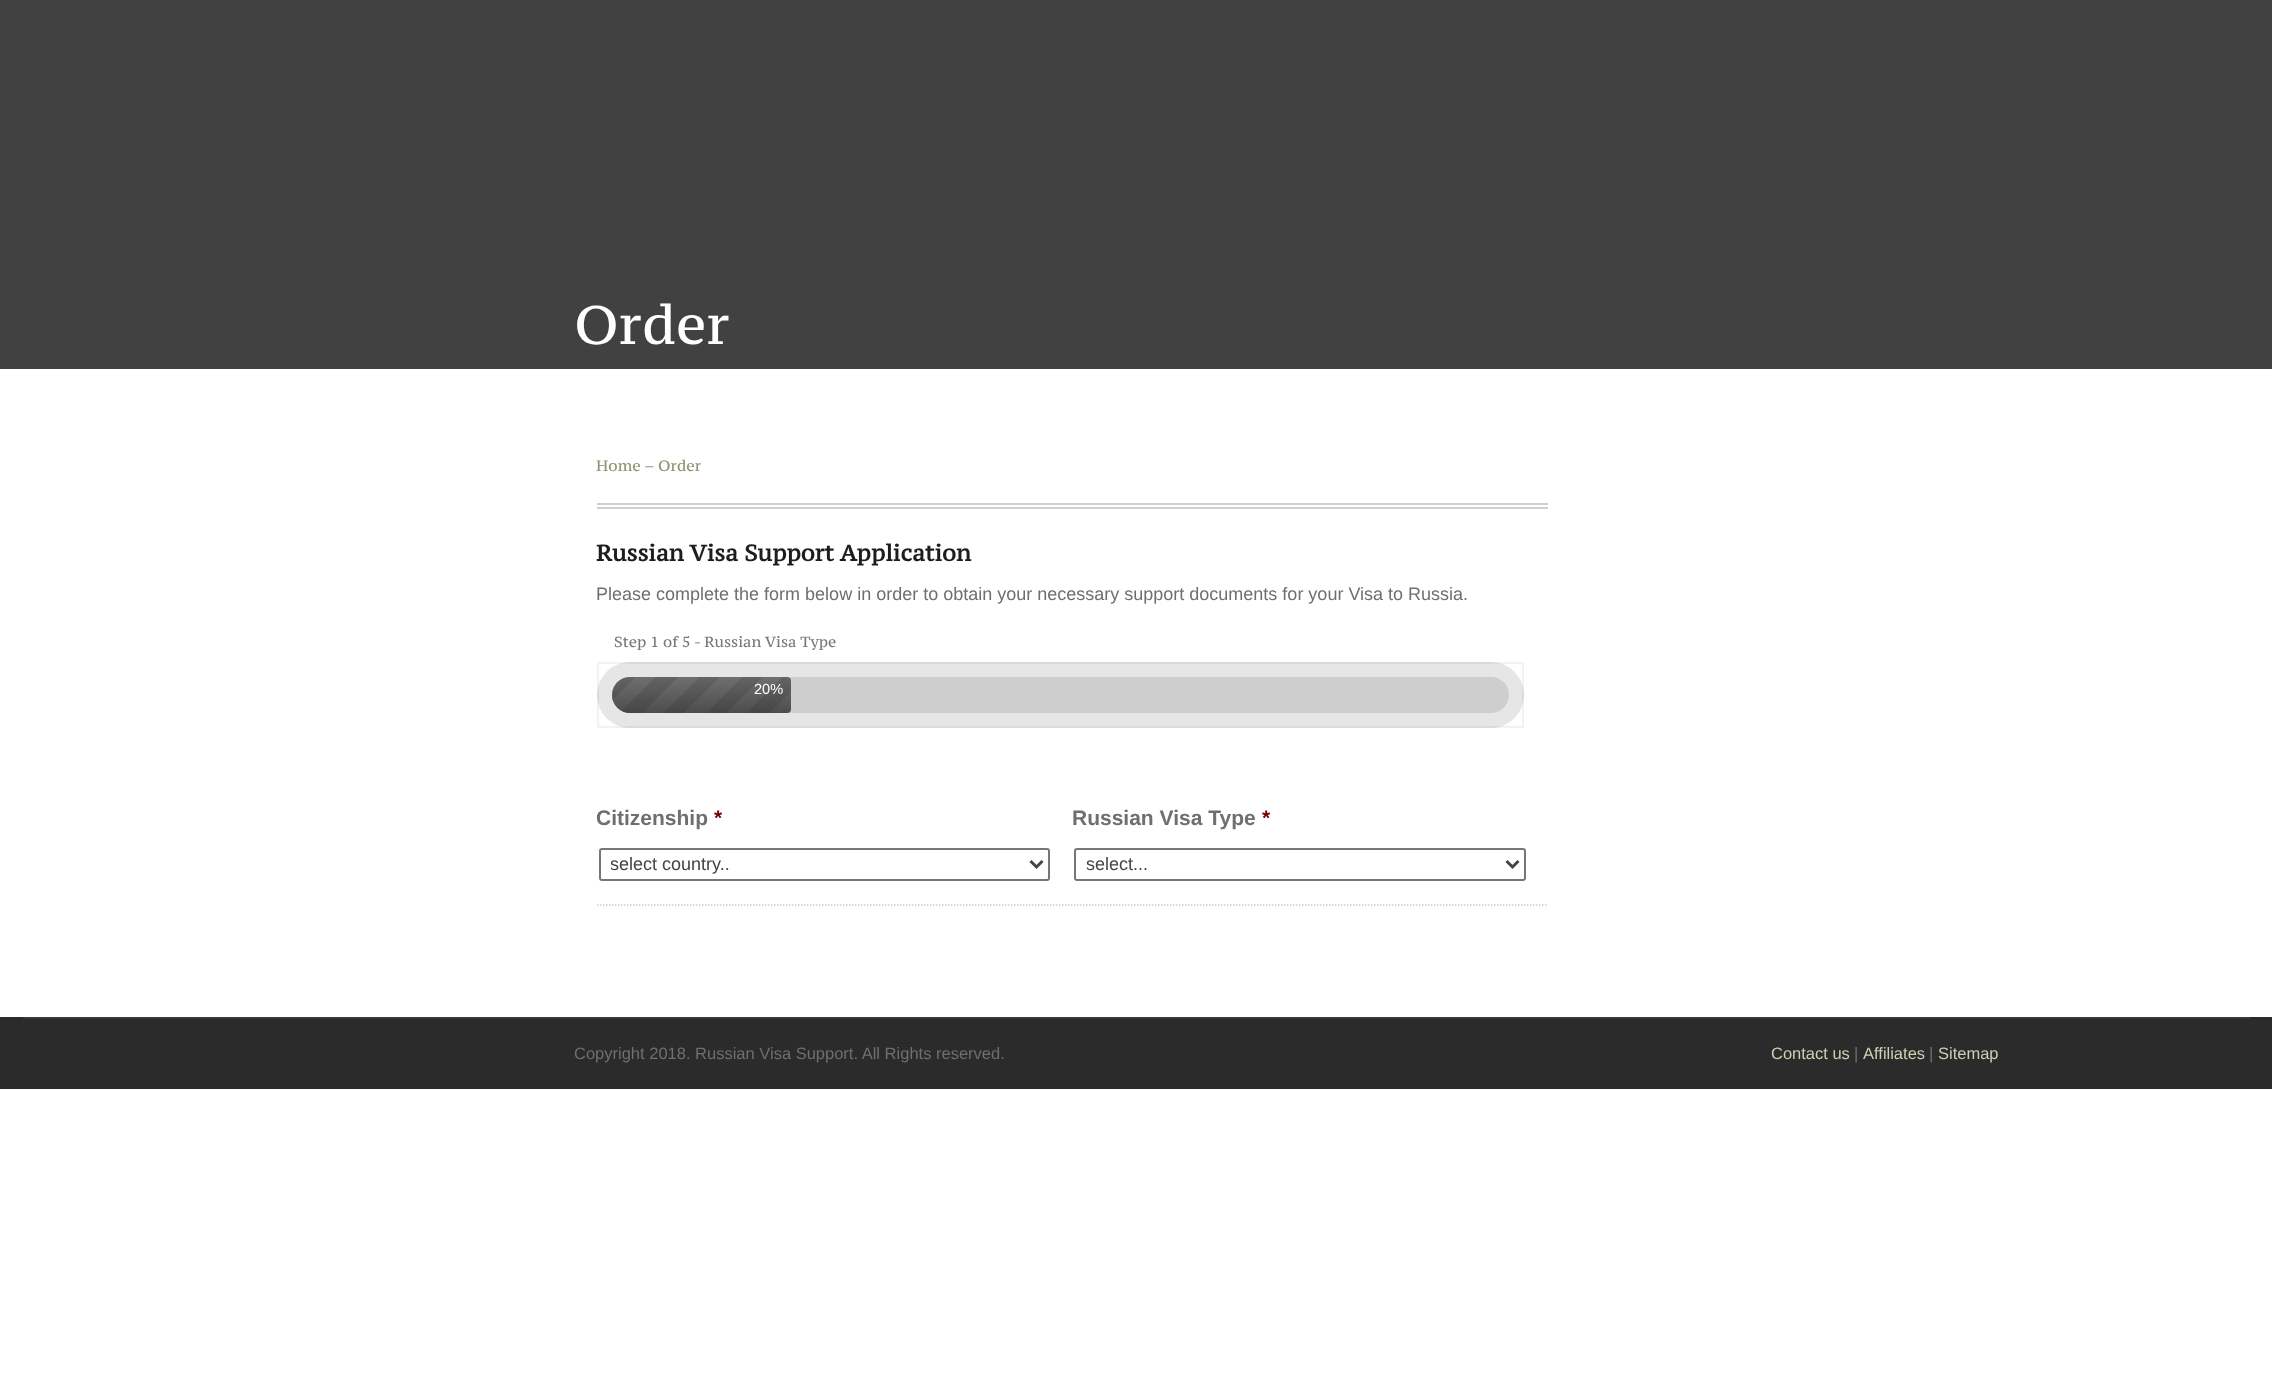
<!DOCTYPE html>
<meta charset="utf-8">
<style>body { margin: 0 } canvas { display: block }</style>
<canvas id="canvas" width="2272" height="1397"></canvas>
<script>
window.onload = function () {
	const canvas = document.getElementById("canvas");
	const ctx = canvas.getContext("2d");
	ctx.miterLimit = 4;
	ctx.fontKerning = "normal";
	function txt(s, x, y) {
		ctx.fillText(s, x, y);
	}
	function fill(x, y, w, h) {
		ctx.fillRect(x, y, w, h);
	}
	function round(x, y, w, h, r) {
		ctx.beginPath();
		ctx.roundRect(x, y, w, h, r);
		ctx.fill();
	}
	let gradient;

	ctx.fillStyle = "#FFFFFF";
	fill(0, 0, 2272, 1397);
	ctx.fillStyle = "#414141";
	fill(0, 0, 2272, 369);
	ctx.fillStyle = "#CFCFCF";
	fill(597, 503, 951, 2);
	fill(597, 507, 951, 2);
	ctx.fillStyle = "#E6E6E6";
	round(597, 662, 927, 66, 33);
	ctx.strokeStyle = "rgba(0, 0, 0, 0.05)";
	ctx.lineWidth = 2;
	ctx.strokeRect(598, 663, 925, 64);
	ctx.fillStyle = "#7C7C7C";
	ctx.beginPath();
	ctx.roundRect(612, 677, 179, 36, [18, 4, 4, 18]);
	ctx.fill();
	gradient = ctx.createLinearGradient(701, 677, 701, 713);
	gradient.addColorStop(0, "rgba(0, 0, 0, 0)");
	gradient.addColorStop(1, "rgba(0, 0, 0, 0.3)");
	ctx.fillStyle = gradient;
	ctx.beginPath();
	ctx.roundRect(612, 677, 179, 36, [18, 4, 4, 18]);
	ctx.fill();
	gradient = ctx.createLinearGradient(755, 748, 628, 621);
	gradient.addColorStop(0, "rgba(0, 0, 0, 0)");
	gradient.addColorStop(0.08, "rgba(0, 0, 0, 0)");
	gradient.addColorStop(0.08, "rgba(0, 0, 0, 0.1)");
	gradient.addColorStop(0.17, "rgba(0, 0, 0, 0.1)");
	gradient.addColorStop(0.17, "rgba(0, 0, 0, 0)");
	gradient.addColorStop(0.25, "rgba(0, 0, 0, 0)");
	gradient.addColorStop(0.25, "rgba(0, 0, 0, 0.1)");
	gradient.addColorStop(0.33, "rgba(0, 0, 0, 0.1)");
	gradient.addColorStop(0.33, "rgba(0, 0, 0, 0)");
	gradient.addColorStop(0.42, "rgba(0, 0, 0, 0)");
	gradient.addColorStop(0.42, "rgba(0, 0, 0, 0.1)");
	gradient.addColorStop(0.5, "rgba(0, 0, 0, 0.1)");
	gradient.addColorStop(0.5, "rgba(0, 0, 0, 0)");
	gradient.addColorStop(0.58, "rgba(0, 0, 0, 0)");
	gradient.addColorStop(0.58, "rgba(0, 0, 0, 0.1)");
	gradient.addColorStop(0.67, "rgba(0, 0, 0, 0.1)");
	gradient.addColorStop(0.67, "rgba(0, 0, 0, 0)");
	gradient.addColorStop(0.75, "rgba(0, 0, 0, 0)");
	gradient.addColorStop(0.75, "rgba(0, 0, 0, 0.1)");
	gradient.addColorStop(0.83, "rgba(0, 0, 0, 0.1)");
	gradient.addColorStop(0.83, "rgba(0, 0, 0, 0)");
	gradient.addColorStop(0.92, "rgba(0, 0, 0, 0)");
	gradient.addColorStop(0.92, "rgba(0, 0, 0, 0.1)");
	gradient.addColorStop(1, "rgba(0, 0, 0, 0.1)");
	ctx.fillStyle = gradient;
	ctx.beginPath();
	ctx.roundRect(612, 677, 179, 36, [18, 4, 4, 18]);
	ctx.fill();
	ctx.fillStyle = "rgba(0, 0, 0, 0.1)";
	round(612, 677, 897, 36, 18);
	ctx.beginPath();
	ctx.roundRect(600, 849, 449, 31, 2);
	ctx.strokeStyle = "#767676";
	ctx.stroke();
	ctx.beginPath();
	ctx.moveTo(1030.5, 861);
	ctx.lineTo(1036.5, 867);
	ctx.lineTo(1042.5, 861);
	ctx.strokeStyle = "#444444";
	ctx.lineWidth = 3;
	ctx.stroke();
	ctx.beginPath();
	ctx.roundRect(1075, 849, 450, 31, 2);
	ctx.strokeStyle = "#767676";
	ctx.lineWidth = 2;
	ctx.stroke();
	ctx.beginPath();
	ctx.moveTo(1506.5, 861);
	ctx.lineTo(1512.5, 867);
	ctx.lineTo(1518.5, 861);
	ctx.strokeStyle = "#444444";
	ctx.lineWidth = 3;
	ctx.stroke();
	ctx.beginPath();
	ctx.moveTo(597, 905);
	ctx.lineTo(1548, 905);
	ctx.strokeStyle = "#CCCCCC";
	ctx.lineWidth = 1.5;
	ctx.setLineDash([1.5, 1.5]);
	ctx.stroke();
	ctx.fillStyle = "#2B2B2B";
	fill(0, 1017, 2272, 72);
	ctx.fillStyle = "#383838";
	fill(23, 1017, 2227, 2);
	ctx.font = "54px PT Serif Caption";
	ctx.fillStyle = "#FFFFFF";
	txt("Order", 574, 344);
	ctx.font = "15px PT Serif Caption";
	ctx.fillStyle = "#929170";
	txt("Home", 596, 471);
	txt("–", 644, 471);
	txt("Order", 658, 471);
	ctx.font = "bold 22.5px PT Serif Caption";
	ctx.fillStyle = "#1D1D1D";
	txt("Russian Visa Support Application", 596, 561);
	ctx.font = "18px Liberation Sans";
	ctx.fillStyle = "#6F6F6F";
	txt("Please complete the form below in order to obtain your necessary support documents for your Visa to Russia.", 596, 600);
	ctx.font = "14.6px PT Serif Caption";
	ctx.fillStyle = "#777777";
	txt("Step 1 of 5 - Russian Visa Type", 614, 647);
	ctx.font = "14.6px Liberation Sans";
	ctx.fillStyle = "#FFFFFF";
	txt("20%", 754, 694);
	ctx.font = "bold 21px Liberation Sans";
	ctx.fillStyle = "#6F6F6F";
	txt("Citizenship", 596, 825);
	ctx.fillStyle = "#790000";
	txt("*", 714, 825);
	ctx.save();
	ctx.beginPath();
	ctx.rect(611, 852, 414, 24);
	ctx.clip();
	ctx.font = "18px Liberation Sans";
	ctx.fillStyle = "#444444";
	txt("select country..", 610, 870);
	ctx.restore();
	ctx.fillStyle = "#6F6F6F";
	txt("Russian Visa Type", 1072, 825);
	ctx.fillStyle = "#790000";
	txt("*", 1262, 825);
	ctx.font = "18px Liberation Sans";
	ctx.fillStyle = "#444444";
	txt("select...", 1086, 870);
	ctx.font = "16.5px Liberation Sans";
	ctx.fillStyle = "#6F6F6F";
	txt("Copyright 2018. Russian Visa Support. All Rights reserved.", 574, 1059);
	ctx.fillStyle = "#D0CFB3";
	txt("Contact us", 1771, 1059);
	ctx.fillStyle = "#6F6F6F";
	txt("|", 1854, 1059);
	ctx.fillStyle = "#D0CFB3";
	txt("Affiliates", 1863, 1059);
	ctx.fillStyle = "#6F6F6F";
	txt("|", 1929, 1059);
	ctx.fillStyle = "#D0CFB3";
	txt("Sitemap", 1938, 1059);
};
</script>
